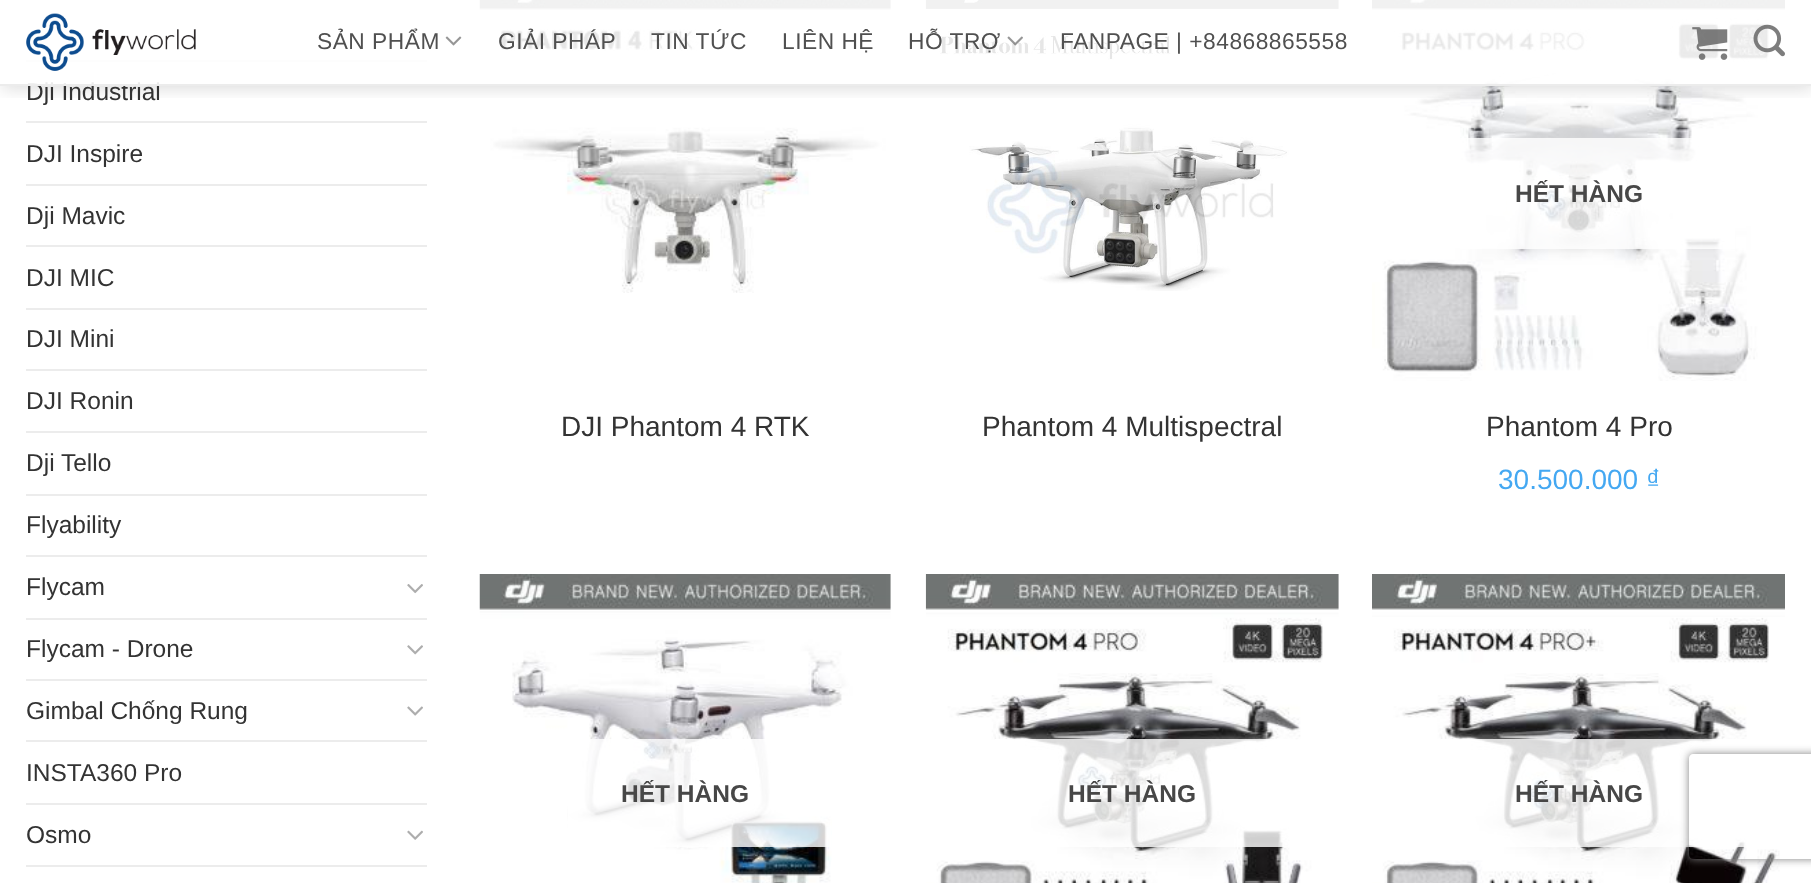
<!DOCTYPE html>
<meta charset="utf-8">
<style>body { margin: 0 } canvas { display: block }</style>
<canvas id="canvas" width="1811" height="883"></canvas>
<img id="img1" src="img_10.png" hidden>
<img id="img2" src="img_11.png" hidden>
<img id="img3" src="img_12.png" hidden>
<img id="img4" src="img_06.png" hidden>
<img id="img5" src="img_07.png" hidden>
<img id="img6" src="img_08.png" hidden>
<img id="img7" src="img_09.png" hidden>
<img id="img8" src="img_13.png" hidden>
<img id="img9" src="img_14.png" hidden>
<img id="img10" src="img_15.png" hidden>
<img id="img11" src="img_05.png" hidden>
<img id="img12" src="img_04.png" hidden>
<img id="img13" src="img_03.png" hidden>
<img id="img14" src="img_02.png" hidden>
<img id="img15" src="img_01.png" hidden>
<script>
window.onload = function () {
	const canvas = document.getElementById("canvas");
	const ctx = canvas.getContext("2d");
	ctx.miterLimit = 4;
	ctx.fontKerning = "normal";
	function txt(s, x, y) {
		ctx.fillText(s, x, y);
	}
	function fill(x, y, w, h) {
		ctx.fillRect(x, y, w, h);
	}
	function img(id, x, y, w, h) {
		ctx.drawImage(document.getElementById(id), x, y, w, h);
	}

	ctx.fillStyle = "#FFFFFF";
	fill(0, 0, 1811, 883);
	ctx.fillStyle = "#ECECEC";
	fill(26, 60, 401, 2);
	img("img1", 479, 0, 412, 293);
	img("img2", 925, 0, 414, 291);
	img("img3", 1372, 0, 413, 381);
	ctx.save();
	ctx.beginPath();
	ctx.rect(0, 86, 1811, 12);
	ctx.clip();
	ctx.fillStyle = "rgba(0, 0, 0, 0.15)";
	ctx.filter = "blur(9px)";
	ctx.beginPath();
	ctx.rect(2, 2, 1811, 86);
	ctx.fill();
	ctx.filter = "none";
	ctx.restore();
	fill(26, 121, 401, 2);
	fill(26, 184, 401, 2);
	fill(26, 245, 401, 2);
	fill(26, 308, 401, 2);
	fill(26, 369, 401, 2);
	fill(26, 431, 401, 2);
	fill(26, 494, 401, 2);
	fill(26, 555, 401, 2);
	img("img4", 407, 584, 16, 10);
	fill(26, 618, 401, 2);
	img("img5", 407, 645, 16, 10);
	fill(26, 679, 401, 2);
	img("img6", 407, 706, 16, 10);
	fill(26, 740, 401, 2);
	fill(26, 803, 401, 2);
	img("img7", 407, 830, 16, 10);
	fill(26, 865, 401, 2);
	ctx.fillStyle = "rgba(255, 255, 255, 0.81)";
	fill(1460, 138, 275, 111);
	img("img8", 479, 574, 412, 309);
	fill(568, 739, 263, 108);
	img("img9", 925, 574, 414, 309);
	fill(995, 739, 295, 108);
	img("img10", 1372, 574, 413, 309);
	fill(1441, 739, 306, 108);
	ctx.save();
	ctx.beginPath();
	ctx.moveTo(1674, 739);
	ctx.lineTo(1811, 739);
	ctx.lineTo(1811, 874);
	ctx.lineTo(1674, 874);
	ctx.closePath();
	ctx.moveTo(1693, 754);
	ctx.lineTo(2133, 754);
	ctx.bezierCurveTo(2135, 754, 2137, 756, 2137, 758);
	ctx.lineTo(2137, 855);
	ctx.bezierCurveTo(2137, 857, 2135, 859, 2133, 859);
	ctx.lineTo(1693, 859);
	ctx.bezierCurveTo(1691, 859, 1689, 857, 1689, 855);
	ctx.lineTo(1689, 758);
	ctx.bezierCurveTo(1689, 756, 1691, 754, 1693, 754);
	ctx.closePath();
	ctx.clip("evenodd");
	ctx.fillStyle = "#808080";
	ctx.filter = "blur(4.5px)";
	ctx.beginPath();
	ctx.roundRect(1689, 754, 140, 105, 4);
	ctx.fill();
	ctx.filter = "none";
	ctx.restore();
	ctx.font = "24.5px Liberation Sans";
	ctx.fillStyle = "#333333";
	txt("Dji Industrial", 26, 100);
	ctx.fillStyle = "rgba(255, 255, 255, 0.9)";
	fill(26, 0, 1759, 84);
	img("img11", 1753, 24, 32, 33);
	img("img12", 1692, 27, 36, 33);
	ctx.letterSpacing = "0.5px";
	ctx.font = "22.75px Liberation Sans";
	ctx.fillStyle = "#505050";
	txt("FANPAGE | +84868865558", 1060, 49);
	img("img13", 1007, 36, 16, 10);
	txt("HỖ TRỢ", 908, 49);
	txt("LIÊN HỆ", 782, 49);
	txt("TIN TỨC", 651, 49);
	txt("GIẢI PHÁP", 498, 49);
	img("img14", 445, 36, 17, 10);
	txt("SẢN PHẨM", 317, 49);
	img("img15", 26, 13, 170, 58);
	ctx.fillStyle = "#ECECEC";
	fill(0, 84, 1811, 2);
	ctx.letterSpacing = "0px";
	ctx.font = "24.5px Liberation Sans";
	ctx.fillStyle = "#333333";
	txt("DJI Inspire", 26, 162);
	txt("Dji Mavic", 26, 224);
	txt("DJI MIC", 26, 286);
	txt("DJI Mini", 26, 347);
	txt("DJI Ronin", 26, 409);
	txt("Dji Tello", 26, 471);
	txt("Flyability", 26, 533);
	txt("Flycam", 26, 595);
	txt("Flycam - Drone", 26, 657);
	txt("Gimbal Chống Rung", 26, 719);
	txt("INSTA360 Pro", 26, 781);
	txt("Osmo", 26, 843);
	ctx.font = "28px Liberation Sans";
	txt("DJI Phantom 4 RTK", 561, 436);
	txt("Phantom 4 Multispectral", 982, 436);
	ctx.font = "bold 24.5px Liberation Sans";
	ctx.fillStyle = "#474747";
	txt("HẾT HÀNG", 1515, 202);
	ctx.font = "28px Liberation Sans";
	ctx.fillStyle = "#333333";
	txt("Phantom 4 Pro", 1486, 436);
	ctx.fillStyle = "#44A8F2";
	txt("30.500.000 ₫", 1498, 489);
	ctx.font = "bold 24.5px Liberation Sans";
	ctx.fillStyle = "#474747";
	txt("HẾT HÀNG", 621, 802);
	txt("HẾT HÀNG", 1068, 802);
	txt("HẾT HÀNG", 1515, 802);
};
</script>
